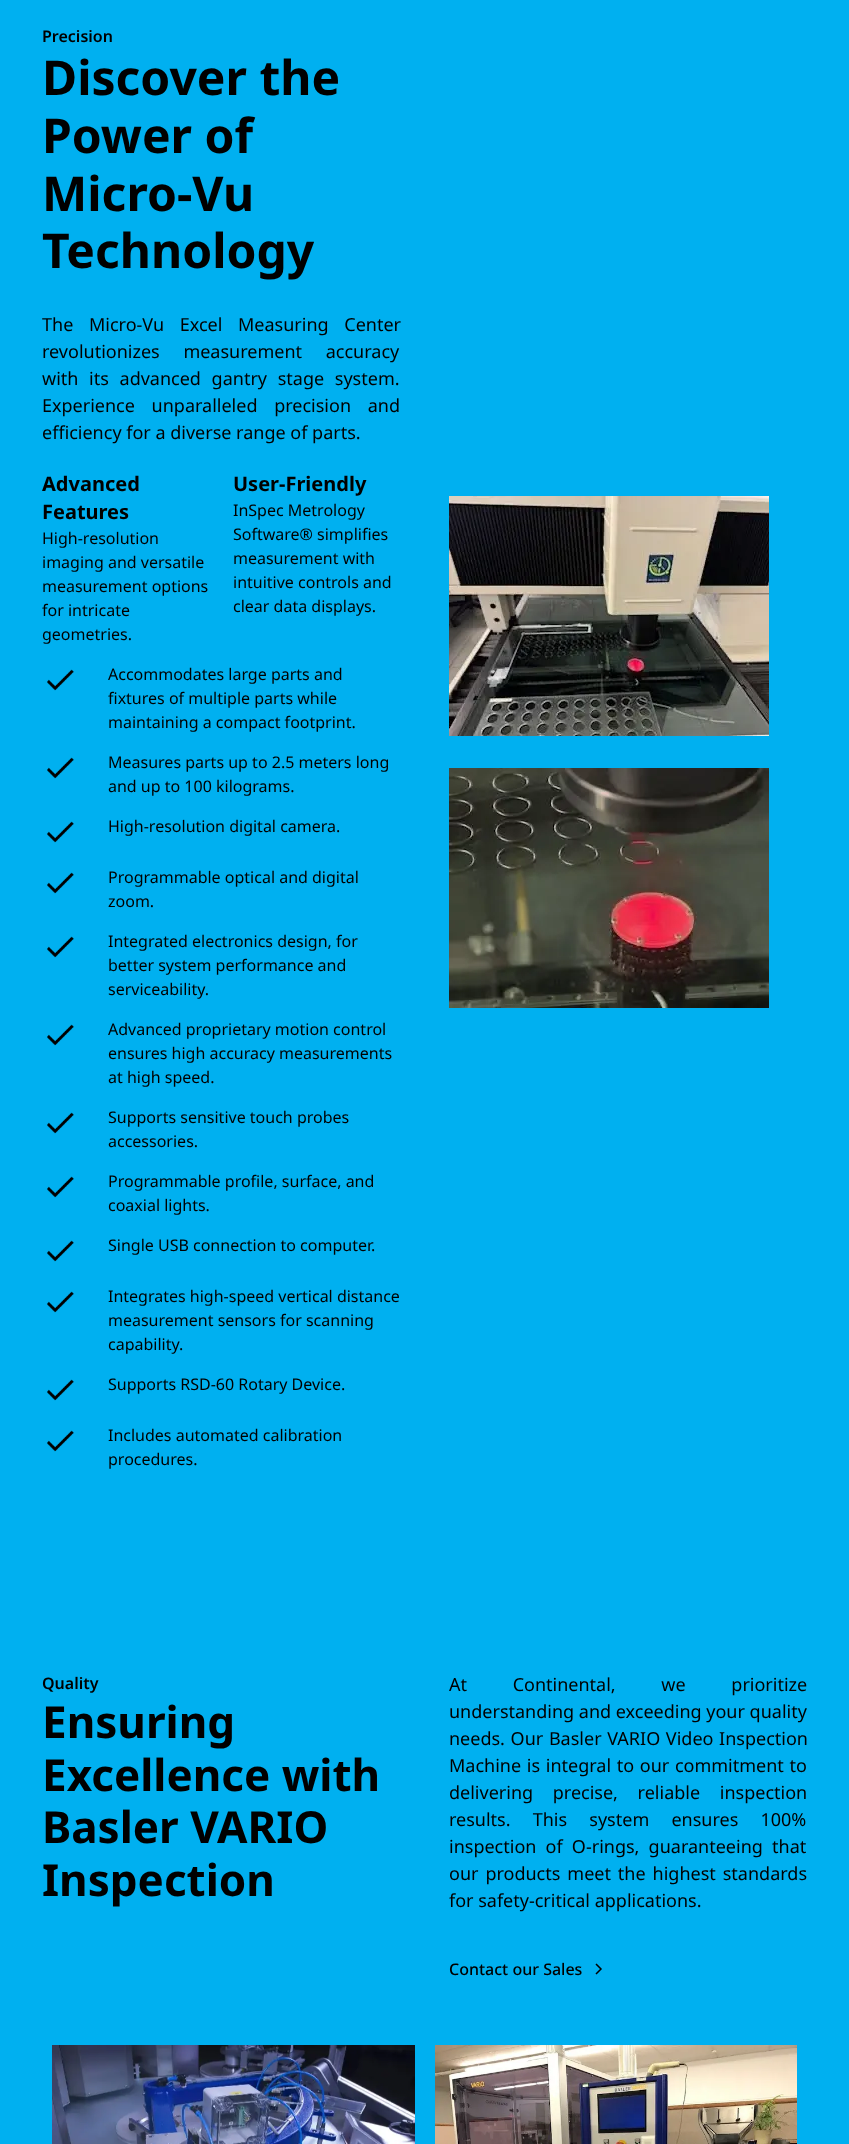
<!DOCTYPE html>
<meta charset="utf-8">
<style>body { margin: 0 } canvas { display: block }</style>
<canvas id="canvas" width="849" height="2144"></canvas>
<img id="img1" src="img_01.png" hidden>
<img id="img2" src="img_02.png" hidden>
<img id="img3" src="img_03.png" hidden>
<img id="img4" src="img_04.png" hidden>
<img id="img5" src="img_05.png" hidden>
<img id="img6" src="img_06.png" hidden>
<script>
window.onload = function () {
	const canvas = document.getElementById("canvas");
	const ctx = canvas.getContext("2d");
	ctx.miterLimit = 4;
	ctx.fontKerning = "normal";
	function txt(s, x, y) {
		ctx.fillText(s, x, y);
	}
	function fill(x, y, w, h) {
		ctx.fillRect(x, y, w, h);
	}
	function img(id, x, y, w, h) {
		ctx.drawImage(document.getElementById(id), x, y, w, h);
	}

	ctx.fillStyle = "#00B0F0";
	fill(0, 0, 849, 2144);
	img("img1", 47, 669, 27, 22);
	img("img1", 47, 757, 27, 22);
	img("img1", 47, 821, 27, 22);
	img("img1", 47, 872, 27, 22);
	img("img1", 47, 936, 27, 22);
	img("img2", 47, 1024, 27, 22);
	img("img1", 47, 1112, 27, 22);
	img("img2", 47, 1176, 27, 22);
	img("img1", 47, 1240, 27, 22);
	img("img1", 47, 1291, 27, 22);
	img("img1", 47, 1379, 27, 22);
	img("img2", 47, 1430, 27, 22);
	img("img3", 449, 496, 320, 240);
	img("img4", 449, 768, 320, 240);
	ctx.beginPath();
	ctx.moveTo(596, 1964);
	ctx.lineTo(601, 1969);
	ctx.lineTo(596, 1974);
	ctx.strokeStyle = "#000000";
	ctx.lineWidth = 1.5;
	ctx.stroke();
	img("img5", 52, 2045, 363, 99);
	img("img6", 435, 2045, 362, 99);
	ctx.font = "600 16px Noto Sans";
	ctx.fillStyle = "#000000";
	txt("Precision", 42, 42);
	ctx.font = "bold 48px Noto Sans";
	txt("Discover the", 42, 95);
	txt("Power of", 42, 153);
	txt("Micro-Vu", 42, 211);
	txt("Technology", 42, 268);
	ctx.wordSpacing = "11px";
	ctx.font = "18px Noto Sans";
	txt("The Micro-Vu Excel Measuring Center", 42, 331);
	ctx.wordSpacing = "19px";
	txt("revolutionizes measurement accuracy", 42, 358);
	ctx.wordSpacing = "6px";
	txt("with its advanced gantry stage system.", 42, 385);
	ctx.wordSpacing = "12px";
	txt("Experience unparalleled precision and", 42, 412);
	ctx.wordSpacing = "0px";
	txt("efficiency for a diverse range of parts.", 42, 439);
	ctx.font = "bold 20px Noto Sans";
	txt("Advanced", 42, 491);
	txt("Features", 42, 519);
	ctx.font = "16px Noto Sans";
	txt("High-resolution", 42, 544);
	txt("imaging and versatile", 42, 568);
	txt("measurement options", 42, 592);
	txt("for intricate", 42, 616);
	txt("geometries.", 42, 640);
	ctx.font = "bold 20px Noto Sans";
	txt("User-Friendly", 233, 491);
	ctx.font = "16px Noto Sans";
	txt("InSpec Metrology", 233, 516);
	txt("Software® simplifies", 233, 540);
	txt("measurement with", 233, 564);
	txt("intuitive controls and", 233, 588);
	txt("clear data displays.", 233, 612);
	txt("Accommodates large parts and", 108, 680);
	txt("fixtures of multiple parts while", 108, 704);
	txt("maintaining a compact footprint.", 108, 728);
	txt("Measures parts up to 2.5 meters long", 108, 768);
	txt("and up to 100 kilograms.", 108, 792);
	txt("High-resolution digital camera.", 108, 832);
	txt("Programmable optical and digital", 108, 883);
	txt("zoom.", 108, 907);
	txt("Integrated electronics design, for", 108, 947);
	txt("better system performance and", 108, 971);
	txt("serviceability.", 108, 995);
	txt("Advanced proprietary motion control", 108, 1035);
	txt("ensures high accuracy measurements", 108, 1059);
	txt("at high speed.", 108, 1083);
	txt("Supports sensitive touch probes", 108, 1123);
	txt("accessories.", 108, 1147);
	txt("Programmable profile, surface, and", 108, 1187);
	txt("coaxial lights.", 108, 1211);
	txt("Single USB connection to computer.", 108, 1251);
	txt("Integrates high-speed vertical distance", 108, 1302);
	txt("measurement sensors for scanning", 108, 1326);
	txt("capability.", 108, 1350);
	txt("Supports RSD-60 Rotary Device.", 108, 1390);
	txt("Includes automated calibration", 108, 1441);
	txt("procedures.", 108, 1465);
	ctx.font = "600 16px Noto Sans";
	txt("Quality", 42, 1689);
	ctx.font = "bold 44px Noto Sans";
	txt("Ensuring", 42, 1738);
	txt("Excellence with", 42, 1791);
	txt("Basler VARIO", 42, 1843);
	txt("Inspection", 42, 1896);
	ctx.wordSpacing = "41px";
	ctx.font = "18px Noto Sans";
	txt("At Continental, we prioritize", 449, 1691);
	ctx.wordSpacing = "0px";
	txt("understanding and exceeding your quality", 449, 1718);
	ctx.wordSpacing = "1px";
	txt("needs. Our Basler VARIO Video Inspection", 449, 1745);
	txt("Machine is integral to our commitment to", 449, 1772);
	ctx.wordSpacing = "15px";
	txt("delivering precise, reliable inspection", 449, 1799);
	ctx.wordSpacing = "17.5px";
	txt("results. This system ensures 100%", 449, 1826);
	ctx.wordSpacing = "4.5px";
	txt("inspection of O-rings, guaranteeing that", 449, 1853);
	ctx.wordSpacing = "2.25px";
	txt("our products meet the highest standards", 449, 1880);
	ctx.wordSpacing = "0px";
	txt("for safety-critical applications.", 449, 1907);
	ctx.font = "500 16px Noto Sans";
	txt("Contact our Sales", 449, 1975);
};
</script>
